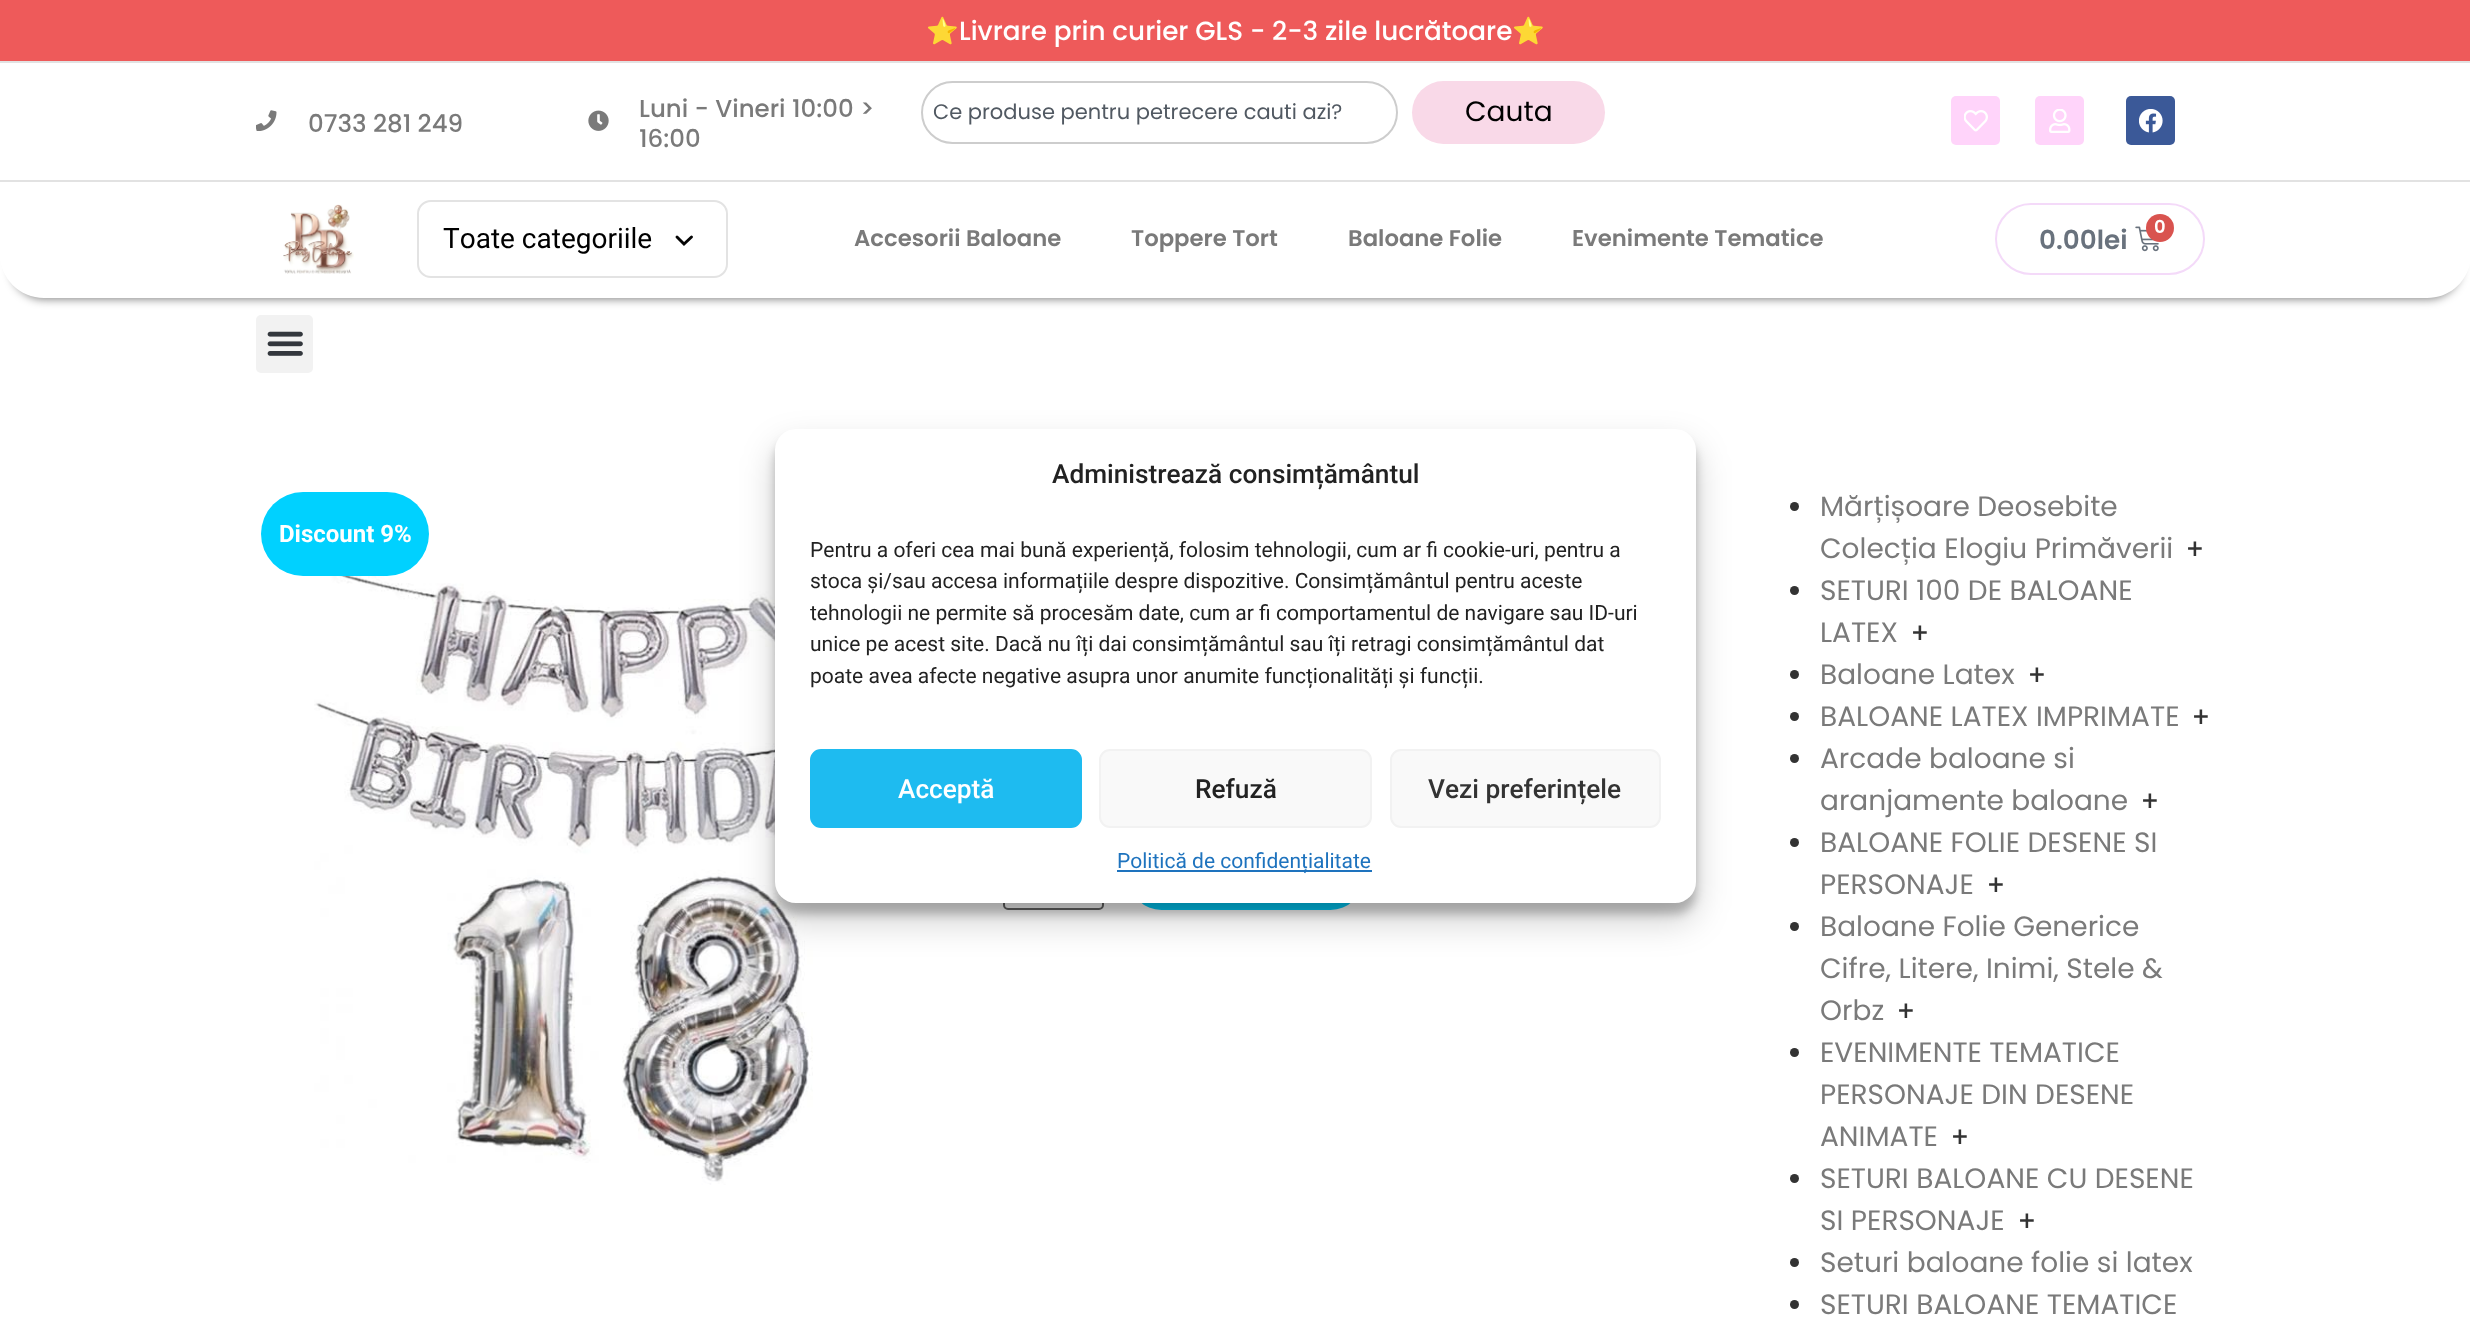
<!DOCTYPE html>
<meta charset="utf-8">
<style>body { margin: 0 } canvas { display: block }</style>
<canvas id="canvas" width="2470" height="1331"></canvas>
<img id="img1" src="img_01.png" hidden>
<img id="img2" src="img_02.png" hidden>
<img id="img3" src="img_03.png" hidden>
<img id="img4" src="img_04.png" hidden>
<img id="img5" src="img_05.png" hidden>
<img id="img6" src="img_06.png" hidden>
<img id="img7" src="img_07.png" hidden>
<img id="img8" src="img_08.png" hidden>
<img id="img9" src="img_09.png" hidden>
<script>
window.onload = function () {
	const canvas = document.getElementById("canvas");
	const ctx = canvas.getContext("2d");
	ctx.miterLimit = 4;
	ctx.fontKerning = "none";
	function txt(s, x, y) {
		ctx.fillText(s, x, y);
	}
	function fill(x, y, w, h) {
		ctx.fillRect(x, y, w, h);
	}
	function round(x, y, w, h, r) {
		ctx.beginPath();
		ctx.roundRect(x, y, w, h, r);
		ctx.fill();
	}
	function img(id, x, y, w, h) {
		ctx.drawImage(document.getElementById(id), x, y, w, h);
	}

	ctx.fillStyle = "#FFFFFF";
	fill(0, 0, 2470, 1331);
	ctx.fillStyle = "#EE5A5A";
	fill(0, 0, 2470, 61);
	ctx.fillStyle = "#E2E2E2";
	fill(0, 61, 2470, 2);
	fill(0, 180, 2470, 2);
	img("img1", 256, 110, 21, 21);
	img("img2", 588, 110, 21, 21);
	ctx.beginPath();
	ctx.roundRect(922, 82, 475, 61, 30.5);
	ctx.strokeStyle = "#CDCDCD";
	ctx.lineWidth = 2;
	ctx.stroke();
	ctx.fillStyle = "#F9D9E8";
	round(1412, 81, 193, 63, 31.5);
	ctx.fillStyle = "#FFD4FA";
	round(1951, 96, 49, 49, 5);
	img("img3", 1964, 110, 24, 22);
	round(2035, 96, 49, 49, 5);
	img("img4", 2049, 109, 22, 24);
	ctx.fillStyle = "#3B5998";
	round(2126, 96, 49, 49, 5);
	img("img5", 2139, 109, 24, 24);
	ctx.fillStyle = "rgba(0, 0, 0, 0.5)";
	ctx.filter = "blur(5px)";
	ctx.beginPath();
	ctx.roundRect(11, 205, 2450, 94, 33);
	ctx.fill();
	ctx.filter = "none";
	ctx.fillStyle = "#FFFFFF";
	ctx.beginPath();
	ctx.moveTo(0, 182);
	ctx.lineTo(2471, 182);
	ctx.lineTo(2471, 254);
	ctx.bezierCurveTo(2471, 278.5, 2451.5, 298, 2427, 298);
	ctx.lineTo(44, 298);
	ctx.bezierCurveTo(19.5, 298, 0, 278.5, 0, 254);
	ctx.closePath();
	ctx.fill();
	img("img6", 283, 204, 71, 70);
	ctx.beginPath();
	ctx.roundRect(418, 201, 309, 76, 13);
	ctx.strokeStyle = "#E3E3E3";
	ctx.stroke();
	ctx.beginPath();
	ctx.moveTo(677, 237);
	ctx.lineTo(684, 244);
	ctx.lineTo(691.5, 237);
	ctx.strokeStyle = "#050505";
	ctx.lineWidth = 2.9;
	ctx.lineCap = "round";
	ctx.stroke();
	ctx.beginPath();
	ctx.roundRect(1996, 204, 208, 70, 35);
	ctx.strokeStyle = "#F4DAF9";
	ctx.lineWidth = 2;
	ctx.stroke();
	img("img7", 2135, 226, 24, 26);
	ctx.fillStyle = "#D9534F";
	ctx.beginPath();
	ctx.arc(2160, 228, 14, 0, Math.PI * 2);
	ctx.fill();
	ctx.fillStyle = "#F2F2F2";
	round(256, 315, 57, 58, 5);
	img("img8", 267, 331, 36, 25);
	img("img9", 314, 567, 642, 618);
	ctx.beginPath();
	ctx.roundRect(1004, 846, 99, 63, 4);
	ctx.strokeStyle = "#666666";
	ctx.stroke();
	ctx.fillStyle = "#00D1FF";
	round(1129, 845, 234, 65, 32.5);
	ctx.fillStyle = "rgba(0, 0, 0, 0.23)";
	ctx.filter = "blur(5px)";
	ctx.beginPath();
	ctx.roundRect(775, 439, 921, 475, 21);
	ctx.fill();
	ctx.filter = "none";
	ctx.fillStyle = "rgba(0, 0, 0, 0.19)";
	ctx.filter = "blur(17.5px)";
	ctx.beginPath();
	ctx.roundRect(775, 446, 921, 475, 21);
	ctx.fill();
	ctx.filter = "none";
	ctx.fillStyle = "#FFFFFF";
	round(775, 429, 921, 474, 21);
	ctx.fillStyle = "#1EBBF0";
	ctx.beginPath();
	ctx.roundRect(811, 750, 270, 77, 10);
	ctx.fill();
	ctx.strokeStyle = "#1EBBF0";
	ctx.stroke();
	ctx.fillStyle = "#F9F9F9";
	ctx.beginPath();
	ctx.roundRect(1100, 750, 271, 77, 10);
	ctx.fill();
	ctx.strokeStyle = "#F2F2F2";
	ctx.stroke();
	ctx.beginPath();
	ctx.roundRect(1391, 750, 269, 77, 10);
	ctx.fill();
	ctx.stroke();
	ctx.fillStyle = "#1E73BE";
	fill(1117, 870, 255, 2);
	ctx.fillStyle = "#00D1FF";
	round(261, 492, 168, 84, 42);
	ctx.fillStyle = "#333333";
	ctx.beginPath();
	ctx.arc(1794.5, 506.5, 4.5, 0, Math.PI * 2);
	ctx.fill();
	ctx.beginPath();
	ctx.arc(1794.5, 590.5, 4.5, 0, Math.PI * 2);
	ctx.fill();
	ctx.beginPath();
	ctx.arc(1794.5, 674.5, 4.5, 0, Math.PI * 2);
	ctx.fill();
	ctx.beginPath();
	ctx.arc(1794.5, 716.5, 4.5, 0, Math.PI * 2);
	ctx.fill();
	ctx.beginPath();
	ctx.arc(1794.5, 758.5, 4.5, 0, Math.PI * 2);
	ctx.fill();
	ctx.beginPath();
	ctx.arc(1794.5, 842.5, 4.5, 0, Math.PI * 2);
	ctx.fill();
	ctx.beginPath();
	ctx.arc(1794.5, 926.5, 4.5, 0, Math.PI * 2);
	ctx.fill();
	ctx.beginPath();
	ctx.arc(1794.5, 1052.5, 4.5, 0, Math.PI * 2);
	ctx.fill();
	ctx.beginPath();
	ctx.arc(1794.5, 1178.5, 4.5, 0, Math.PI * 2);
	ctx.fill();
	ctx.beginPath();
	ctx.arc(1794.5, 1262.5, 4.5, 0, Math.PI * 2);
	ctx.fill();
	ctx.beginPath();
	ctx.arc(1794.5, 1304.5, 4.5, 0, Math.PI * 2);
	ctx.fill();
	ctx.font = "26.25px Noto Color Emoji";
	ctx.fillStyle = "#FFFFFF";
	txt("⭐", 926, 40);
	ctx.font = "500 26.25px Poppins";
	txt("Livrare prin curier GLS - 2-3 zile lucrătoare", 959, 40);
	ctx.font = "26.25px Noto Color Emoji";
	txt("⭐", 1512, 40);
	ctx.font = "500 24.5px Poppins";
	ctx.fillStyle = "#7A7A7A";
	txt("0733 281 249", 308, 132);
	txt("Luni - Vineri 10:00 >", 639, 117);
	txt("16:00", 639, 147);
	ctx.font = "21px Poppins";
	ctx.fillStyle = "#515962";
	txt("Ce produse pentru petrecere cauti azi?", 933, 119);
	ctx.font = "28px Poppins";
	ctx.fillStyle = "#000000";
	txt("Cauta", 1465, 121);
	ctx.font = "28px Roboto";
	txt("Toate categoriile", 443, 248);
	ctx.font = "600 22.75px Poppins";
	ctx.fillStyle = "#7A7A7A";
	txt("Accesorii Baloane", 854, 246);
	txt("Toppere Tort", 1131, 246);
	txt("Baloane Folie", 1348, 246);
	txt("Evenimente Tematice", 1572, 246);
	ctx.font = "600 18px Poppins";
	ctx.fillStyle = "#FFFFFF";
	txt("0", 2154, 233);
	ctx.font = "600 26.25px Poppins";
	ctx.fillStyle = "#69727D";
	txt("0.00lei", 2039, 249);
	ctx.font = "500 26.25px Roboto";
	ctx.fillStyle = "#222222";
	txt("Administrează consimțământul", 1052, 483);
	ctx.font = "21px Roboto";
	txt("Pentru a oferi cea mai bună experiență, folosim tehnologii, cum ar fi cookie-uri, pentru a", 810, 557);
	txt("stoca și/sau accesa informațiile despre dispozitive. Consimțământul pentru aceste", 810, 588);
	txt("tehnologii ne permite să procesăm date, cum ar fi comportamentul de navigare sau ID-uri", 810, 620);
	txt("unice pe acest site. Dacă nu îți dai consimțământul sau îți retragi consimțământul dat", 810, 651);
	txt("poate avea afecte negative asupra unor anumite funcționalități și funcții.", 810, 683);
	ctx.font = "500 26.25px Roboto";
	ctx.fillStyle = "#FFFFFF";
	txt("Acceptă", 898, 798);
	ctx.fillStyle = "#222222";
	txt("Refuză", 1195, 798);
	ctx.fillStyle = "#333333";
	txt("Vezi preferințele", 1428, 798);
	ctx.font = "21px Roboto";
	ctx.fillStyle = "#1E73BE";
	txt("Politică de confidențialitate", 1117, 868);
	ctx.font = "bold 24px Roboto";
	ctx.fillStyle = "#FFFFFF";
	txt("Discount 9%", 279, 542);
	ctx.font = "28px Poppins";
	ctx.fillStyle = "#7A7A7A";
	txt("Mărțișoare Deosebite", 1820, 516);
	txt("Colecția Elogiu Primăverii", 1820, 558);
	ctx.font = "28px Roboto";
	ctx.fillStyle = "#333333";
	txt("+", 2187, 558);
	ctx.font = "28px Poppins";
	ctx.fillStyle = "#7A7A7A";
	txt("SETURI 100 DE BALOANE", 1820, 600);
	txt("LATEX", 1820, 642);
	ctx.font = "28px Roboto";
	ctx.fillStyle = "#333333";
	txt("+", 1912, 642);
	ctx.font = "28px Poppins";
	ctx.fillStyle = "#7A7A7A";
	txt("Baloane Latex", 1820, 684);
	ctx.font = "28px Roboto";
	ctx.fillStyle = "#333333";
	txt("+", 2029, 684);
	ctx.font = "28px Poppins";
	ctx.fillStyle = "#7A7A7A";
	txt("BALOANE LATEX IMPRIMATE", 1820, 726);
	ctx.font = "28px Roboto";
	ctx.fillStyle = "#333333";
	txt("+", 2193, 726);
	ctx.font = "28px Poppins";
	ctx.fillStyle = "#7A7A7A";
	txt("Arcade baloane si", 1820, 768);
	txt("aranjamente baloane", 1820, 810);
	ctx.font = "28px Roboto";
	ctx.fillStyle = "#333333";
	txt("+", 2142, 810);
	ctx.font = "28px Poppins";
	ctx.fillStyle = "#7A7A7A";
	txt("BALOANE FOLIE DESENE SI", 1820, 852);
	txt("PERSONAJE", 1820, 894);
	ctx.font = "28px Roboto";
	ctx.fillStyle = "#333333";
	txt("+", 1988, 894);
	ctx.font = "28px Poppins";
	ctx.fillStyle = "#7A7A7A";
	txt("Baloane Folie Generice", 1820, 936);
	txt("Cifre, Litere, Inimi, Stele &", 1820, 978);
	txt("Orbz", 1820, 1020);
	ctx.font = "28px Roboto";
	ctx.fillStyle = "#333333";
	txt("+", 1898, 1020);
	ctx.font = "28px Poppins";
	ctx.fillStyle = "#7A7A7A";
	txt("EVENIMENTE TEMATICE", 1820, 1062);
	txt("PERSONAJE DIN DESENE", 1820, 1104);
	txt("ANIMATE", 1820, 1146);
	ctx.font = "28px Roboto";
	ctx.fillStyle = "#333333";
	txt("+", 1952, 1146);
	ctx.font = "28px Poppins";
	ctx.fillStyle = "#7A7A7A";
	txt("SETURI BALOANE CU DESENE", 1820, 1188);
	txt("SI PERSONAJE", 1820, 1230);
	ctx.font = "28px Roboto";
	ctx.fillStyle = "#333333";
	txt("+", 2019, 1230);
	ctx.font = "28px Poppins";
	ctx.fillStyle = "#7A7A7A";
	txt("Seturi baloane folie si latex", 1820, 1272);
	txt("SETURI BALOANE TEMATICE", 1820, 1314);
};
</script>
